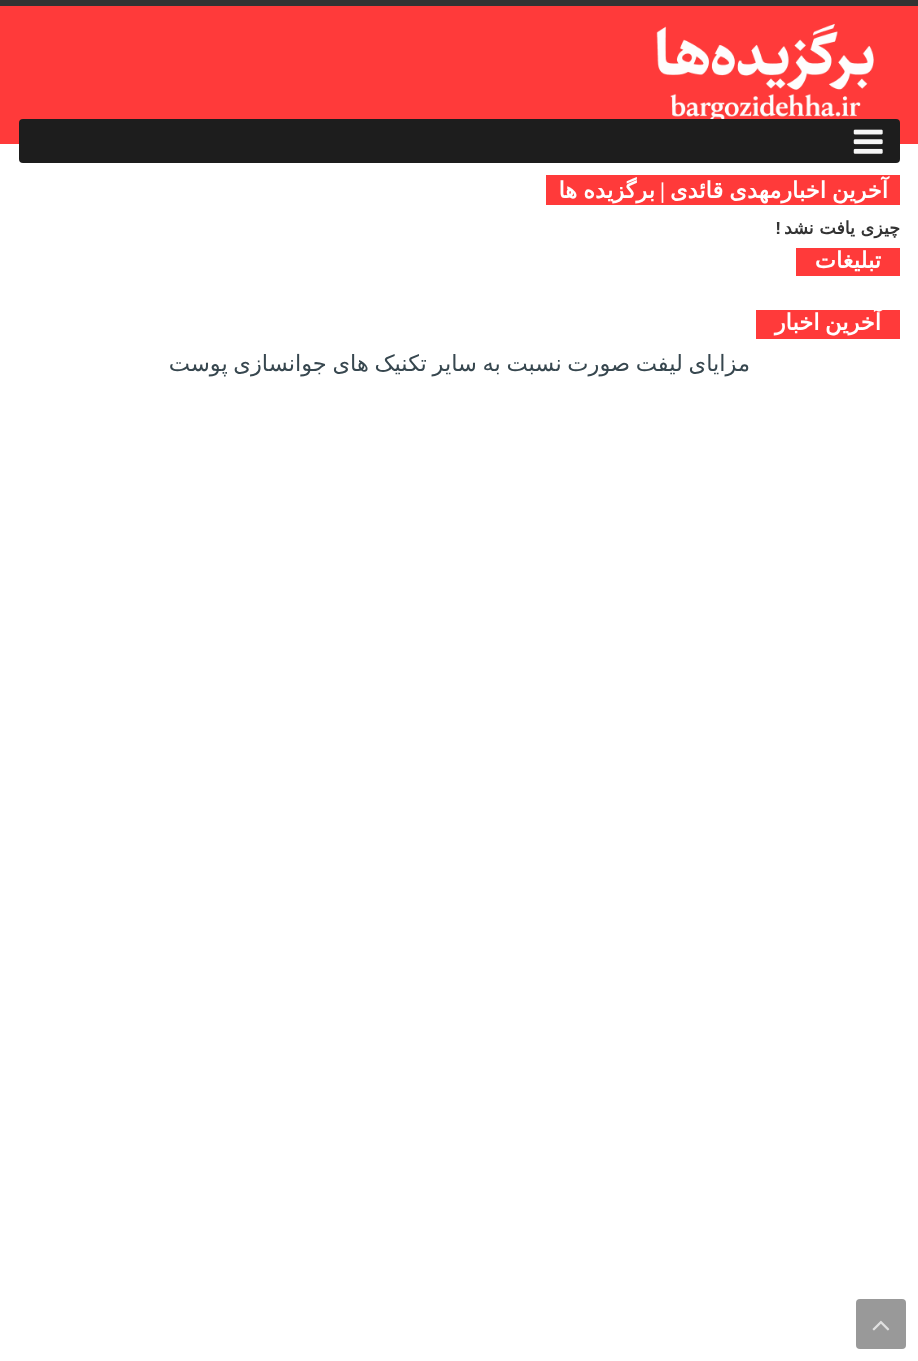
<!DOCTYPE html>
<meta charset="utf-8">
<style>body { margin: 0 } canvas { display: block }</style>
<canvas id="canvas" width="918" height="1361"></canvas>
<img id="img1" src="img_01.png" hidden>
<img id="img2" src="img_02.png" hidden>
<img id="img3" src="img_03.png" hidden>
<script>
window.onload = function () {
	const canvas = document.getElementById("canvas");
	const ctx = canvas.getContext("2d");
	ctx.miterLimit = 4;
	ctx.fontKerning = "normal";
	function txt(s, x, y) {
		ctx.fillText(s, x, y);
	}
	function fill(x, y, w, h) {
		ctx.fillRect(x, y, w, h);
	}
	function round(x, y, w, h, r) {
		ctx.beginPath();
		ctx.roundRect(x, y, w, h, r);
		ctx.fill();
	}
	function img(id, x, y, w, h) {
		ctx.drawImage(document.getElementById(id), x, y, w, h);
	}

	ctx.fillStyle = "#FFFFFF";
	fill(0, 0, 918, 1361);
	ctx.fillStyle = "#FF3A3A";
	fill(0, 6, 918, 138);
	ctx.fillStyle = "#333333";
	fill(0, 0, 918, 6);
	img("img1", 656, 23, 218, 96);
	ctx.fillStyle = "#1D1D1D";
	round(19, 119, 881, 44, 4);
	img("img2", 853, 129, 30, 25);
	ctx.fillStyle = "#FF3A3A";
	fill(546, 175, 354, 30);
	fill(796, 248, 104, 28);
	fill(756, 310, 144, 29);
	ctx.fillStyle = "#999999";
	round(856, 1299, 50, 50, 4);
	img("img3", 872, 1320, 18, 11);
	ctx.wordSpacing = "-1px";
	ctx.direction = "rtl";
	ctx.font = "bold 22.5px DejaVu Sans";
	ctx.fillStyle = "#FFFFFF";
	txt("آخرین اخبارمهدی قائدی", 888, 198);
	ctx.wordSpacing = "0px";
	ctx.font = "bold 22.5px Liberation Serif";
	txt("|", 665, 198);
	ctx.wordSpacing = "-1px";
	ctx.font = "bold 22.5px DejaVu Sans";
	txt("برگزیده ها", 655, 198);
	ctx.wordSpacing = "0px";
	ctx.font = "bold 17.5px DejaVu Sans";
	ctx.fillStyle = "#333333";
	txt("چیزی یافت نشد", 900, 234);
	ctx.font = "bold 17.5px Liberation Sans";
	txt("!", 781, 234);
	ctx.font = "bold 22.5px DejaVu Sans";
	ctx.fillStyle = "#FFFFFF";
	txt("تبلیغات", 881, 268);
	ctx.save();
	ctx.beginPath();
	ctx.rect(46, 310, 854, 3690);
	ctx.clip();
	ctx.wordSpacing = "-1.5px";
	txt("آخرین اخبار", 881, 330);
	ctx.restore();
	ctx.wordSpacing = "-1.5px";
	ctx.font = "22.5px DejaVu Sans";
	ctx.fillStyle = "#37474F";
	txt("مزایای لیفت صورت نسبت به سایر تکنیک های جوانسازی پوست", 750, 371);
};
</script>
